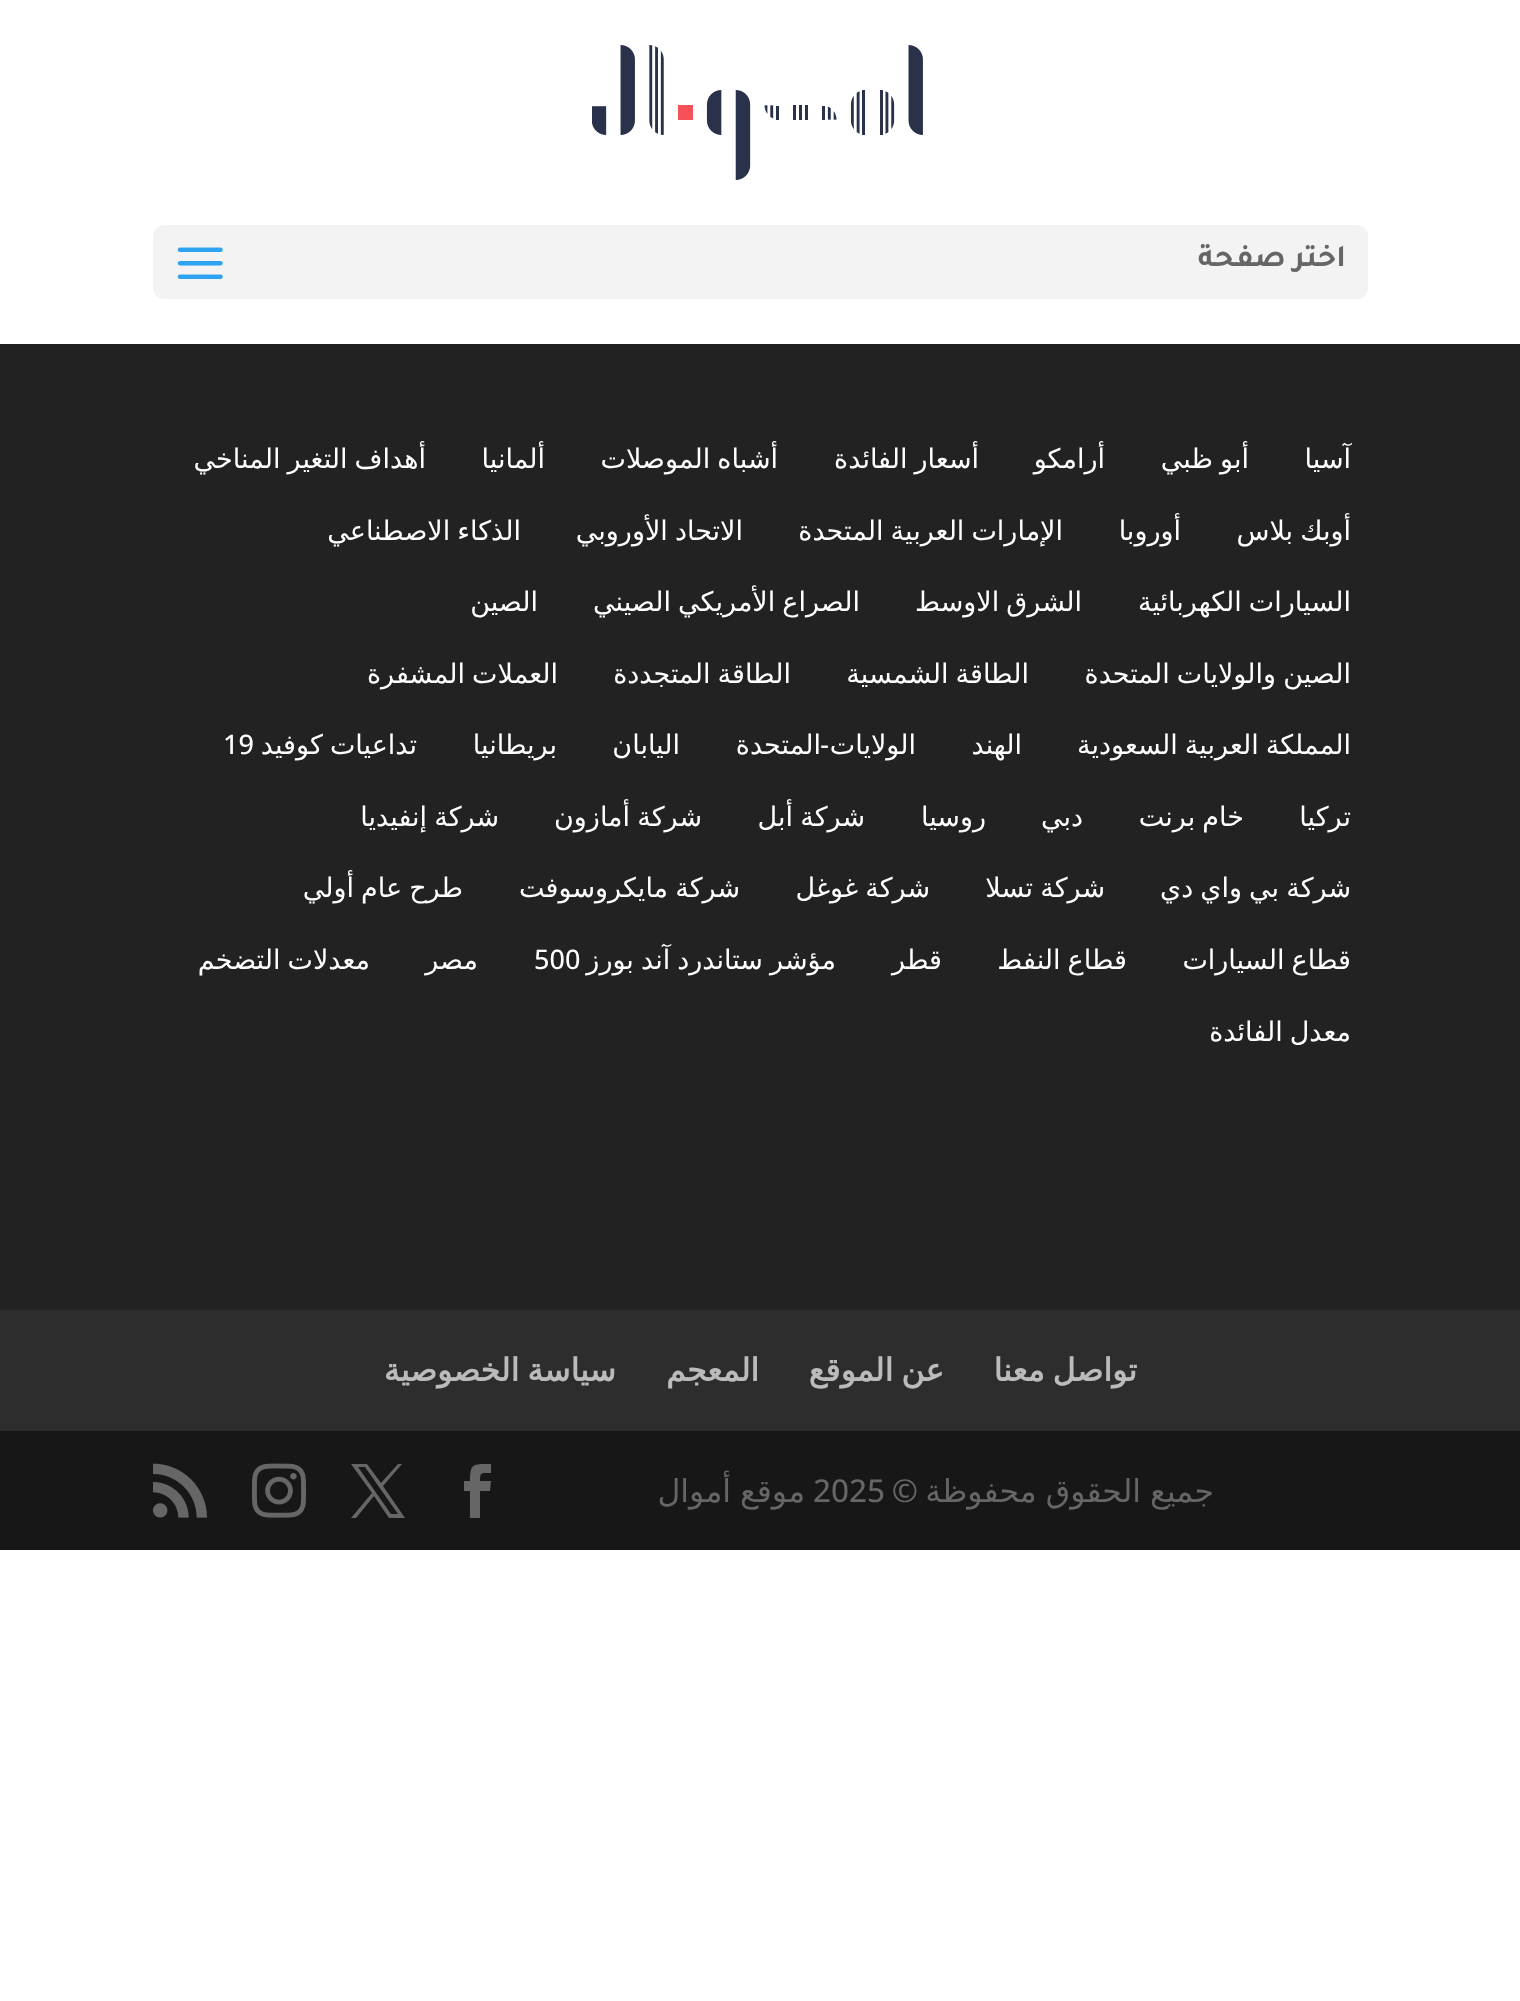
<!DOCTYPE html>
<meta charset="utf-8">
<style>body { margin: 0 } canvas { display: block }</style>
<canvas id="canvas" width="1520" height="2001"></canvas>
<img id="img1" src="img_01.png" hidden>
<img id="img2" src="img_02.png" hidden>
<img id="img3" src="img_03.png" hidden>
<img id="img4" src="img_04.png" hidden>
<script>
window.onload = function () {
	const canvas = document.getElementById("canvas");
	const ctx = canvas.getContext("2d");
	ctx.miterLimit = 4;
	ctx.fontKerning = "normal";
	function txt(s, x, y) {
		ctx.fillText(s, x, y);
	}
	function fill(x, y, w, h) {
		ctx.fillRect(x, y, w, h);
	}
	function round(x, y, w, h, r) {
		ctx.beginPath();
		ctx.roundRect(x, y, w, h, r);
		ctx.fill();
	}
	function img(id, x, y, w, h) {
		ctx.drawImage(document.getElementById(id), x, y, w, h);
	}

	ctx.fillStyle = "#FFFFFF";
	fill(0, 0, 1520, 2001);
	ctx.fillStyle = "#1F1F1F";
	fill(0, 344, 1520, 3);
	img("img1", 592, 45, 331, 135);
	ctx.fillStyle = "#F3F3F3";
	round(153, 225, 1215, 74, 11);
	img("img2", 177, 247, 46, 32);
	ctx.fillStyle = "#222222";
	fill(0, 347, 1520, 963);
	ctx.fillStyle = "#2D2D2D";
	fill(0, 1310, 1520, 121);
	ctx.fillStyle = "#171717";
	fill(0, 1431, 1520, 119);
	ctx.fillStyle = "#666666";
	ctx.beginPath();
	ctx.moveTo(470, 1518);
	ctx.lineTo(480, 1518);
	ctx.lineTo(480, 1491);
	ctx.lineTo(490, 1491);
	ctx.lineTo(491, 1481);
	ctx.lineTo(480, 1481);
	ctx.bezierCurveTo(480, 1472, 481, 1473, 491, 1473);
	ctx.lineTo(491, 1464);
	ctx.bezierCurveTo(473, 1464, 470, 1463, 470, 1481);
	ctx.lineTo(464, 1481);
	ctx.lineTo(464, 1491);
	ctx.lineTo(470, 1491);
	ctx.closePath();
	ctx.fill();
	ctx.beginPath();
	ctx.moveTo(351, 1464);
	ctx.lineTo(372, 1493);
	ctx.lineTo(351, 1518);
	ctx.lineTo(356, 1518);
	ctx.lineTo(374, 1496);
	ctx.lineTo(389, 1518);
	ctx.lineTo(405, 1518);
	ctx.lineTo(383, 1486);
	ctx.lineTo(402, 1464);
	ctx.lineTo(398, 1464);
	ctx.lineTo(381, 1483);
	ctx.lineTo(367, 1464);
	ctx.closePath();
	ctx.moveTo(358, 1467);
	ctx.lineTo(365, 1467);
	ctx.lineTo(398, 1514);
	ctx.lineTo(391, 1514);
	ctx.closePath();
	ctx.fill();
	img("img3", 252, 1463, 54, 55);
	img("img4", 153, 1463, 54, 55);
	ctx.direction = "rtl";
	ctx.font = "bold 31.5px Tajawal";
	txt("اختر صفحة", 1346, 266);
	ctx.font = "27px DejaVu Sans";
	ctx.fillStyle = "#FFFFFF";
	txt("آسيا", 1351, 468);
	ctx.wordSpacing = "-1.5px";
	txt("أبو ظبي", 1249, 468);
	ctx.wordSpacing = "0px";
	txt("أرامكو", 1105, 468);
	ctx.wordSpacing = "-1.5px";
	txt("أسعار الفائدة", 979, 468);
	txt("أشباه الموصلات", 778, 468);
	ctx.wordSpacing = "0px";
	txt("ألمانيا", 545, 468);
	ctx.wordSpacing = "-1.5px";
	txt("أهداف التغير المناخي", 426, 468);
	txt("أوبك بلاس", 1351, 540);
	ctx.wordSpacing = "0px";
	txt("أوروبا", 1181, 540);
	ctx.wordSpacing = "-1.5px";
	txt("الإمارات العربية المتحدة", 1063, 540);
	txt("الاتحاد الأوروبي", 743, 540);
	txt("الذكاء الاصطناعي", 521, 540);
	txt("السيارات الكهربائية", 1351, 611);
	txt("الشرق الاوسط", 1082, 611);
	txt("الصراع الأمريكي الصيني", 860, 611);
	ctx.wordSpacing = "0px";
	txt("الصين", 538, 611);
	ctx.wordSpacing = "-1.5px";
	txt("الصين والولايات المتحدة", 1351, 683);
	txt("الطاقة الشمسية", 1029, 683);
	txt("الطاقة المتجددة", 791, 683);
	txt("العملات المشفرة", 558, 683);
	txt("المملكة العربية السعودية", 1351, 754);
	ctx.wordSpacing = "0px";
	txt("الهند", 1022, 754);
	txt("الولايات", 916, 754);
	ctx.font = "500 27px Open Sans";
	txt("-", 829, 754);
	ctx.font = "27px DejaVu Sans";
	txt("المتحدة", 821, 754);
	txt("اليابان", 680, 754);
	txt("بريطانيا", 557, 754);
	ctx.wordSpacing = "-1.5px";
	txt("تداعيات كوفيد", 417, 754);
	ctx.wordSpacing = "0px";
	ctx.direction = "ltr";
	ctx.font = "500 27px Open Sans";
	txt("19", 223, 754);
	ctx.direction = "rtl";
	ctx.font = "27px DejaVu Sans";
	txt("تركيا", 1351, 826);
	ctx.wordSpacing = "-1.5px";
	txt("خام برنت", 1244, 826);
	ctx.wordSpacing = "0px";
	txt("دبي", 1083, 826);
	txt("روسيا", 986, 826);
	ctx.wordSpacing = "-1.5px";
	txt("شركة أبل", 865, 826);
	txt("شركة أمازون", 702, 826);
	txt("شركة إنفيديا", 499, 826);
	txt("شركة بي واي دي", 1351, 897);
	txt("شركة تسلا", 1105, 897);
	txt("شركة غوغل", 930, 897);
	txt("شركة مايكروسوفت", 740, 897);
	txt("طرح عام أولي", 463, 897);
	txt("قطاع السيارات", 1351, 969);
	txt("قطاع النفط", 1127, 969);
	ctx.wordSpacing = "0px";
	txt("قطر", 942, 969);
	ctx.wordSpacing = "-1.5px";
	txt("مؤشر ستاندرد آند بورز", 836, 969);
	ctx.wordSpacing = "0px";
	ctx.direction = "ltr";
	ctx.font = "500 27px Open Sans";
	txt("500", 534, 969);
	ctx.direction = "rtl";
	ctx.font = "27px DejaVu Sans";
	txt("مصر", 478, 969);
	ctx.wordSpacing = "-1.5px";
	txt("معدلات التضخم", 370, 969);
	txt("معدل الفائدة", 1351, 1041);
	ctx.wordSpacing = "-2px";
	ctx.font = "bold 31.5px DejaVu Sans";
	ctx.fillStyle = "#BBBBBB";
	txt("تواصل معنا", 1137, 1381);
	txt("عن الموقع", 944, 1381);
	ctx.wordSpacing = "0px";
	txt("المعجم", 759, 1381);
	ctx.wordSpacing = "-2px";
	txt("سياسة الخصوصية", 616, 1381);
	ctx.wordSpacing = "-1px";
	ctx.font = "31.5px DejaVu Sans";
	ctx.fillStyle = "#666666";
	txt("جميع الحقوق محفوظة", 1214, 1502);
	ctx.wordSpacing = "0px";
	ctx.font = "500 31.5px Open Sans";
	txt("©", 918, 1502);
	ctx.direction = "ltr";
	txt("2025", 813, 1502);
	ctx.wordSpacing = "-1px";
	ctx.direction = "rtl";
	ctx.font = "31.5px DejaVu Sans";
	txt("موقع أموال", 805, 1502);
};
</script>
